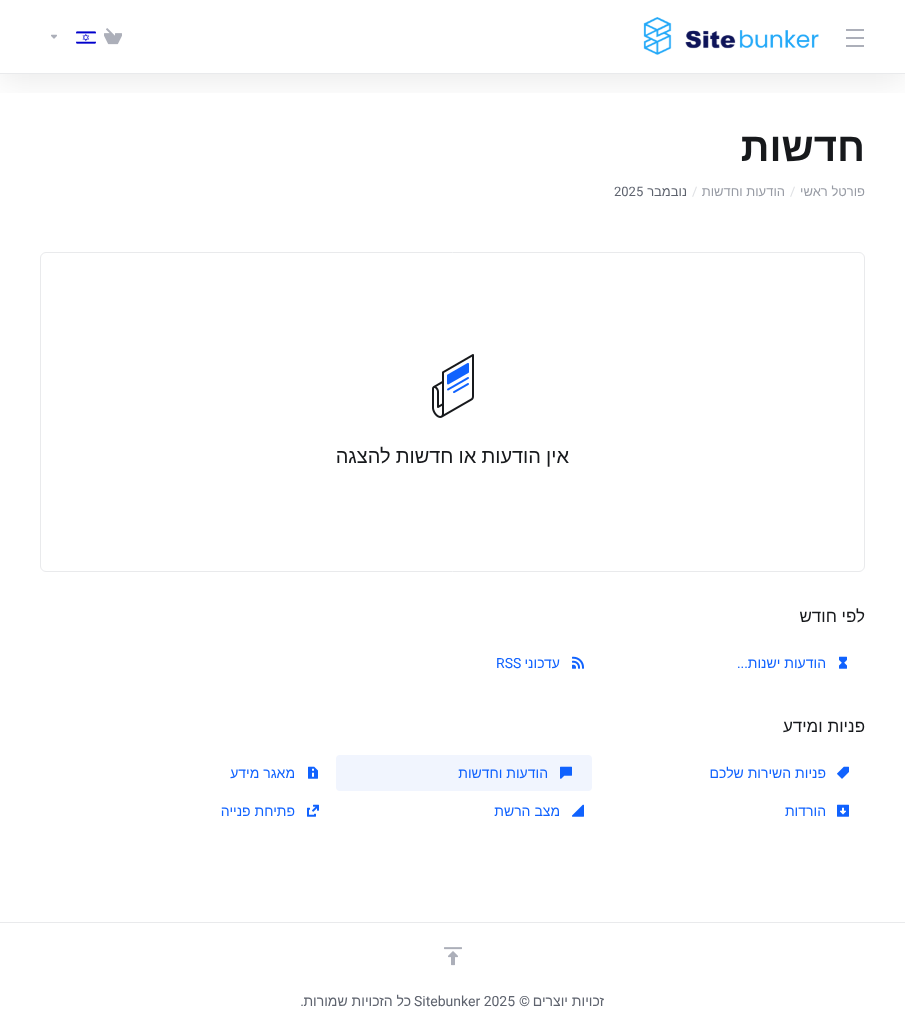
<!DOCTYPE html>
<meta charset="utf-8">
<style>body { margin: 0 } canvas { display: block }</style>
<canvas id="canvas" width="905" height="1029"></canvas>
<img id="img1" src="img_01.png" hidden>
<img id="img2" src="img_02.png" hidden>
<img id="img3" src="img_03.png" hidden>
<img id="img4" src="img_04.png" hidden>
<img id="img5" src="img_05.png" hidden>
<img id="img6" src="img_06.png" hidden>
<img id="img7" src="img_07.png" hidden>
<img id="img8" src="img_08.png" hidden>
<img id="img9" src="img_09.png" hidden>
<img id="img10" src="img_10.png" hidden>
<img id="img11" src="img_11.png" hidden>
<img id="img12" src="img_12.png" hidden>
<img id="img13" src="img_13.png" hidden>
<img id="img14" src="img_14.png" hidden>
<script>
window.onload = function () {
	const canvas = document.getElementById("canvas");
	const ctx = canvas.getContext("2d");
	ctx.miterLimit = 4;
	ctx.fontKerning = "normal";
	function txt(s, x, y) {
		ctx.fillText(s, x, y);
	}
	function fill(x, y, w, h) {
		ctx.fillRect(x, y, w, h);
	}
	function round(x, y, w, h, r) {
		ctx.beginPath();
		ctx.roundRect(x, y, w, h, r);
		ctx.fill();
	}
	function img(id, x, y, w, h) {
		ctx.drawImage(document.getElementById(id), x, y, w, h);
	}

	ctx.fillStyle = "#FFFFFF";
	fill(0, 0, 905, 1029);
	ctx.save();
	ctx.beginPath();
	ctx.rect(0, 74, 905, 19);
	ctx.clip();
	ctx.fillStyle = "rgba(0, 0, 0, 0.08)";
	ctx.filter = "blur(16px)";
	ctx.beginPath();
	ctx.rect(0, 8, 905, 74);
	ctx.fill();
	ctx.filter = "none";
	ctx.restore();
	ctx.fillStyle = "#E9EAEC";
	fill(0, 73, 905, 1);
	ctx.fillStyle = "#ACAFB9";
	fill(846, 29, 18, 2);
	fill(846, 37, 18, 2);
	fill(846, 45, 18, 2);
	img("img1", 643, 17, 176, 38);
	img("img2", 104, 28, 18, 17);
	img("img3", 76, 31, 20, 13);
	img("img4", 51, 34, 6, 5);
	ctx.beginPath();
	ctx.roundRect(40.5, 252.5, 824, 319, 5.5);
	ctx.strokeStyle = "#E9EAEC";
	ctx.stroke();
	img("img5", 432, 354, 42, 64);
	img("img6", 839, 656, 8, 13);
	img("img7", 572, 656, 12, 13);
	img("img8", 837, 766, 12, 13);
	ctx.fillStyle = "#F1F5FE";
	round(336, 755, 256, 36, 4);
	img("img9", 560, 766, 12, 13);
	img("img10", 308, 766, 10, 13);
	img("img11", 837, 804, 12, 13);
	img("img12", 572, 804, 12, 13);
	img("img13", 307, 804, 12, 13);
	ctx.fillStyle = "#E9EAEC";
	fill(0, 922, 905, 1);
	img("img14", 444, 947, 18, 19);
	ctx.direction = "rtl";
	ctx.font = "bold 40px Liberation Sans";
	ctx.fillStyle = "#17191C";
	txt("חדשות", 865, 161);
	ctx.font = "13px Liberation Sans";
	ctx.fillStyle = "#979BA4";
	txt("פורטל ראשי", 865, 196);
	ctx.direction = "ltr";
	ctx.font = "13px Roboto";
	ctx.fillStyle = "#DEE0E3";
	txt("/", 790, 196);
	ctx.direction = "rtl";
	ctx.font = "13px Liberation Sans";
	ctx.fillStyle = "#979BA4";
	txt("הודעות וחדשות", 785, 196);
	ctx.direction = "ltr";
	ctx.font = "13px Roboto";
	ctx.fillStyle = "#DEE0E3";
	txt("/", 692, 196);
	ctx.direction = "rtl";
	ctx.font = "13px Liberation Sans";
	ctx.fillStyle = "#5E636E";
	txt("נובמבר", 687, 196);
	ctx.direction = "ltr";
	ctx.font = "13px Roboto";
	txt("2025", 614, 196);
	ctx.wordSpacing = "-0.5px";
	ctx.direction = "rtl";
	ctx.font = "20px Liberation Sans";
	ctx.fillStyle = "#17191C";
	txt("אין הודעות או חדשות להצגה", 569, 463);
	ctx.wordSpacing = "0px";
	ctx.font = "17px Liberation Sans";
	txt("לפי חודש", 865, 622);
	ctx.font = "14px Liberation Sans";
	ctx.fillStyle = "#1062FE";
	txt("הודעות ישנות", 826, 668);
	ctx.font = "14px Roboto";
	txt("...", 748, 668);
	ctx.font = "14px Liberation Sans";
	txt("עדכוני", 560, 668);
	ctx.direction = "ltr";
	ctx.font = "14px Roboto";
	txt("RSS", 496, 668);
	ctx.direction = "rtl";
	ctx.font = "17px Liberation Sans";
	ctx.fillStyle = "#17191C";
	txt("פניות ומידע", 865, 732);
	ctx.font = "14px Liberation Sans";
	ctx.fillStyle = "#1062FE";
	txt("פניות השירות שלכם", 826, 778);
	txt("הודעות וחדשות", 548, 778);
	txt("מאגר מידע", 295, 778);
	txt("הורדות", 826, 816);
	txt("מצב הרשת", 560, 816);
	txt("פתיחת פנייה", 295, 816);
	ctx.fillStyle = "#5E636E";
	txt("זכויות יוצרים", 604, 1006);
	ctx.font = "14px Roboto";
	txt("©", 530, 1006);
	ctx.direction = "ltr";
	txt("Sitebunker 2025", 414, 1006);
	ctx.direction = "rtl";
	ctx.font = "14px Liberation Sans";
	txt("כל הזכויות שמורות", 411, 1006);
	ctx.font = "14px Roboto";
	txt(".", 304, 1006);
};
</script>
